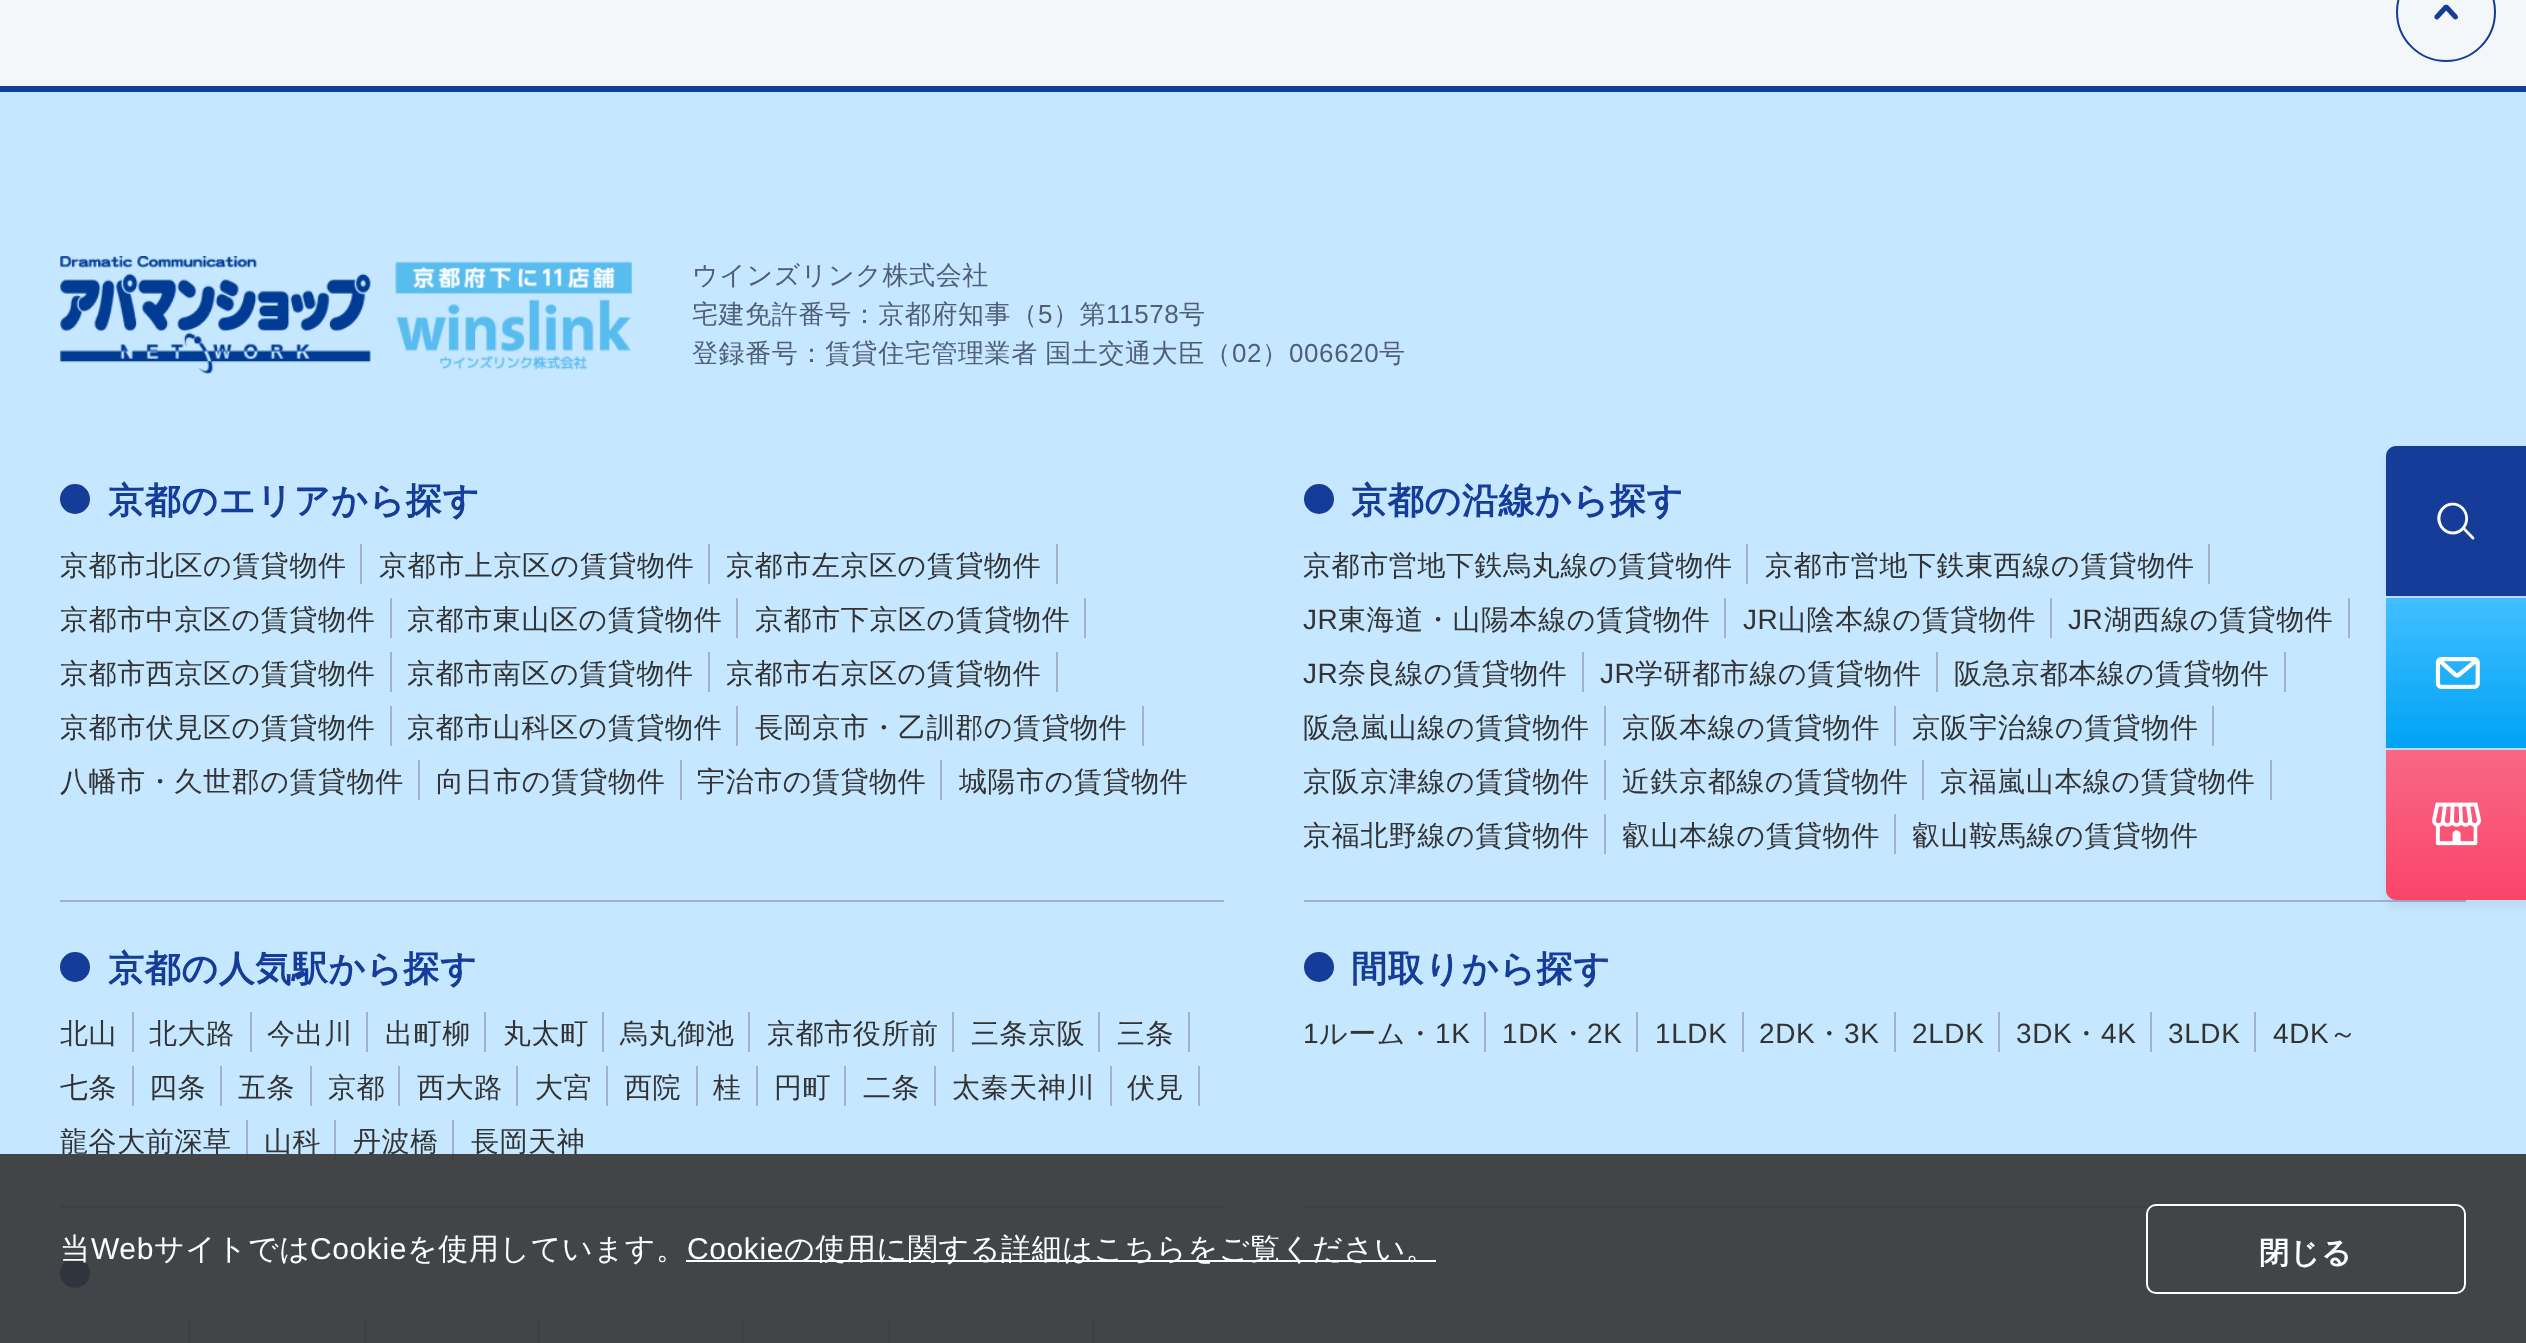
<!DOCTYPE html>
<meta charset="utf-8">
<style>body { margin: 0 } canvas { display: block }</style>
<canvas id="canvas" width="2526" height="1343"></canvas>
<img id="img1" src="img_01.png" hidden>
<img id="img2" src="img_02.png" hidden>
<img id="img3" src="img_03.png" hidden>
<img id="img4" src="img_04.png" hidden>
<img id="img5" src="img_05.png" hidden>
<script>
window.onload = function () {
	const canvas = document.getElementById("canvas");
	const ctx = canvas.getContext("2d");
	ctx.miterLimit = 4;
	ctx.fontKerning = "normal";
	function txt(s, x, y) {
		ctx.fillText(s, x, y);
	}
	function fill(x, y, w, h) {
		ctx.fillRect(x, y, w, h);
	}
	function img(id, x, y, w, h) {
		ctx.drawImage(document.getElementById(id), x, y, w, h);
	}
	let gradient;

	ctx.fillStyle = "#F3F7FA";
	fill(0, 0, 2526, 1343);
	ctx.beginPath();
	ctx.arc(2446, 12, 49, 0, Math.PI * 2);
	ctx.strokeStyle = "#153C98";
	ctx.lineWidth = 2;
	ctx.stroke();
	img("img1", 2434, 4, 24, 16);
	ctx.fillStyle = "#C5E7FF";
	fill(0, 92, 2526, 1251);
	ctx.fillStyle = "#153C98";
	fill(0, 86, 2526, 6);
	img("img2", 60, 256, 572, 118);
	ctx.fillStyle = "#A1B1CF";
	fill(60, 900, 1164, 2);
	ctx.fillStyle = "#153C98";
	ctx.beginPath();
	ctx.arc(75, 499, 15, 0, Math.PI * 2);
	ctx.fill();
	ctx.fillStyle = "#A1B1CF";
	fill(360, 544, 2, 40);
	fill(708, 544, 2, 40);
	fill(1056, 544, 2, 40);
	fill(390, 598, 2, 40);
	fill(736, 598, 2, 40);
	fill(1084, 598, 2, 40);
	fill(390, 652, 2, 40);
	fill(708, 652, 2, 40);
	fill(1056, 652, 2, 40);
	fill(390, 706, 2, 40);
	fill(736, 706, 2, 40);
	fill(1142, 706, 2, 40);
	fill(418, 760, 2, 40);
	fill(680, 760, 2, 40);
	fill(940, 760, 2, 40);
	fill(1304, 900, 1162, 2);
	ctx.fillStyle = "#153C98";
	ctx.beginPath();
	ctx.arc(1319, 499, 15, 0, Math.PI * 2);
	ctx.fill();
	ctx.fillStyle = "#A1B1CF";
	fill(1746, 544, 2, 40);
	fill(2208, 544, 2, 40);
	fill(1724, 598, 2, 40);
	fill(2050, 598, 2, 40);
	fill(2348, 598, 2, 40);
	fill(1582, 652, 2, 40);
	fill(1936, 652, 2, 40);
	fill(2284, 652, 2, 40);
	fill(1604, 706, 2, 40);
	fill(1894, 706, 2, 40);
	fill(2212, 706, 2, 40);
	fill(1604, 760, 2, 40);
	fill(1922, 760, 2, 40);
	fill(2270, 760, 2, 40);
	fill(1604, 814, 2, 40);
	fill(1894, 814, 2, 40);
	fill(60, 1206, 1164, 2);
	ctx.fillStyle = "#153C98";
	ctx.beginPath();
	ctx.arc(75, 967, 15, 0, Math.PI * 2);
	ctx.fill();
	ctx.fillStyle = "#A1B1CF";
	fill(132, 1012, 2, 40);
	fill(250, 1012, 2, 40);
	fill(366, 1012, 2, 40);
	fill(484, 1012, 2, 40);
	fill(602, 1012, 2, 40);
	fill(748, 1012, 2, 40);
	fill(952, 1012, 2, 40);
	fill(1098, 1012, 2, 40);
	fill(1188, 1012, 2, 40);
	fill(132, 1066, 2, 40);
	fill(220, 1066, 2, 40);
	fill(310, 1066, 2, 40);
	fill(398, 1066, 2, 40);
	fill(516, 1066, 2, 40);
	fill(606, 1066, 2, 40);
	fill(696, 1066, 2, 40);
	fill(756, 1066, 2, 40);
	fill(844, 1066, 2, 40);
	fill(934, 1066, 2, 40);
	fill(1110, 1066, 2, 40);
	fill(1198, 1066, 2, 40);
	fill(246, 1120, 2, 40);
	fill(334, 1120, 2, 40);
	fill(452, 1120, 2, 40);
	fill(1304, 1206, 1162, 2);
	ctx.fillStyle = "#153C98";
	ctx.beginPath();
	ctx.arc(1319, 967, 15, 0, Math.PI * 2);
	ctx.fill();
	ctx.fillStyle = "#A1B1CF";
	fill(1484, 1012, 2, 40);
	fill(1636, 1012, 2, 40);
	fill(1742, 1012, 2, 40);
	fill(1894, 1012, 2, 40);
	fill(1998, 1012, 2, 40);
	fill(2150, 1012, 2, 40);
	fill(2254, 1012, 2, 40);
	ctx.fillStyle = "#153C98";
	ctx.beginPath();
	ctx.arc(75, 1273, 15, 0, Math.PI * 2);
	ctx.fill();
	ctx.fillStyle = "#A1B1CF";
	fill(188, 1318, 2, 25);
	fill(364, 1318, 2, 25);
	fill(538, 1318, 2, 25);
	fill(742, 1318, 2, 25);
	fill(888, 1318, 2, 25);
	fill(1092, 1318, 2, 25);
	ctx.fillStyle = "rgba(0, 0, 0, 0.05)";
	ctx.filter = "blur(4px)";
	ctx.beginPath();
	ctx.roundRect(2386, 454, 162, 150, 10);
	ctx.fill();
	ctx.filter = "none";
	ctx.filter = "blur(4px)";
	ctx.beginPath();
	ctx.rect(2386, 606, 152, 150);
	ctx.fill();
	ctx.filter = "none";
	ctx.fillStyle = "#153C98";
	ctx.beginPath();
	ctx.moveTo(2396, 446);
	ctx.lineTo(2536, 446);
	ctx.lineTo(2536, 596);
	ctx.lineTo(2386, 596);
	ctx.lineTo(2386, 456);
	ctx.bezierCurveTo(2386, 450.5, 2390.5, 446, 2396, 446);
	ctx.closePath();
	ctx.fill();
	img("img3", 2437, 502, 38, 38);
	ctx.fillStyle = "rgba(0, 0, 0, 0.05)";
	ctx.filter = "blur(4px)";
	ctx.beginPath();
	ctx.roundRect(2386, 758, 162, 150, 10);
	ctx.fill();
	ctx.filter = "none";
	gradient = ctx.createLinearGradient(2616, 597, 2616, 747);
	gradient.addColorStop(0, "#42BFFF");
	gradient.addColorStop(1, "#00A3F5");
	ctx.fillStyle = gradient;
	fill(2386, 598, 140, 150);
	img("img4", 2435, 657, 45, 32);
	gradient = ctx.createLinearGradient(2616, 749, 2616, 899);
	gradient.addColorStop(0, "#F96785");
	gradient.addColorStop(1, "#FA456A");
	ctx.fillStyle = gradient;
	ctx.beginPath();
	ctx.moveTo(2386, 750);
	ctx.lineTo(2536, 750);
	ctx.lineTo(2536, 900);
	ctx.lineTo(2396, 900);
	ctx.bezierCurveTo(2390.5, 900, 2386, 895.5, 2386, 890);
	ctx.closePath();
	ctx.fill();
	img("img5", 2432, 802, 50, 44);
	ctx.letterSpacing = "0.6px";
	ctx.font = "500 26px WenQuanYi Zen Hei";
	ctx.fillStyle = "#505F75";
	txt("ウインズリンク株式会社", 692, 284);
	txt("宅建免許番号：京都府知事（", 692, 323);
	ctx.font = "26px Liberation Sans";
	txt("5", 1038, 323);
	ctx.font = "500 26px WenQuanYi Zen Hei";
	txt("）第", 1053, 323);
	ctx.font = "26px Liberation Sans";
	txt("11578", 1106, 323);
	ctx.font = "500 26px WenQuanYi Zen Hei";
	txt("号", 1179, 323);
	ctx.wordSpacing = "-1px";
	txt("登録番号：賃貸住宅管理業者 国土交通大臣（", 692, 362);
	ctx.wordSpacing = "0px";
	ctx.font = "26px Liberation Sans";
	txt("02", 1232, 362);
	ctx.font = "500 26px WenQuanYi Zen Hei";
	txt("）", 1262, 362);
	ctx.font = "26px Liberation Sans";
	txt("006620", 1289, 362);
	ctx.font = "500 26px WenQuanYi Zen Hei";
	txt("号", 1379, 362);
	ctx.font = "bold 36px WenQuanYi Zen Hei";
	ctx.fillStyle = "#153C98";
	txt("京都のエリアから探す", 108, 513);
	ctx.font = "500 28px WenQuanYi Zen Hei";
	ctx.fillStyle = "#333333";
	txt("京都市北区の賃貸物件", 60, 575);
	txt("京都市上京区の賃貸物件", 379, 575);
	txt("京都市左京区の賃貸物件", 726, 575);
	txt("京都市中京区の賃貸物件", 60, 629);
	txt("京都市東山区の賃貸物件", 407, 629);
	txt("京都市下京区の賃貸物件", 755, 629);
	txt("京都市西京区の賃貸物件", 60, 683);
	txt("京都市南区の賃貸物件", 407, 683);
	txt("京都市右京区の賃貸物件", 726, 683);
	txt("京都市伏見区の賃貸物件", 60, 737);
	txt("京都市山科区の賃貸物件", 407, 737);
	txt("長岡京市・乙訓郡の賃貸物件", 755, 737);
	txt("八幡市・久世郡の賃貸物件", 60, 791);
	txt("向日市の賃貸物件", 436, 791);
	txt("宇治市の賃貸物件", 697, 791);
	txt("城陽市の賃貸物件", 959, 791);
	ctx.font = "bold 36px WenQuanYi Zen Hei";
	ctx.fillStyle = "#153C98";
	txt("京都の沿線から探す", 1351, 513);
	ctx.font = "500 28px WenQuanYi Zen Hei";
	ctx.fillStyle = "#333333";
	txt("京都市営地下鉄烏丸線の賃貸物件", 1303, 575);
	txt("京都市営地下鉄東西線の賃貸物件", 1765, 575);
	ctx.font = "28px Liberation Sans";
	txt("JR", 1303, 629);
	ctx.font = "500 28px WenQuanYi Zen Hei";
	txt("東海道・山陽本線の賃貸物件", 1338, 629);
	ctx.font = "28px Liberation Sans";
	txt("JR", 1743, 629);
	ctx.font = "500 28px WenQuanYi Zen Hei";
	txt("山陰本線の賃貸物件", 1778, 629);
	ctx.font = "28px Liberation Sans";
	txt("JR", 2068, 629);
	ctx.font = "500 28px WenQuanYi Zen Hei";
	txt("湖西線の賃貸物件", 2104, 629);
	ctx.font = "28px Liberation Sans";
	txt("JR", 1303, 683);
	ctx.font = "500 28px WenQuanYi Zen Hei";
	txt("奈良線の賃貸物件", 1338, 683);
	ctx.font = "28px Liberation Sans";
	txt("JR", 1600, 683);
	ctx.font = "500 28px WenQuanYi Zen Hei";
	txt("学研都市線の賃貸物件", 1635, 683);
	txt("阪急京都本線の賃貸物件", 1954, 683);
	txt("阪急嵐山線の賃貸物件", 1303, 737);
	txt("京阪本線の賃貸物件", 1622, 737);
	txt("京阪宇治線の賃貸物件", 1912, 737);
	txt("京阪京津線の賃貸物件", 1303, 791);
	txt("近鉄京都線の賃貸物件", 1622, 791);
	txt("京福嵐山本線の賃貸物件", 1940, 791);
	txt("京福北野線の賃貸物件", 1303, 845);
	txt("叡山本線の賃貸物件", 1622, 845);
	txt("叡山鞍馬線の賃貸物件", 1912, 845);
	ctx.font = "bold 36px WenQuanYi Zen Hei";
	ctx.fillStyle = "#153C98";
	txt("京都の人気駅から探す", 108, 981);
	ctx.font = "500 28px WenQuanYi Zen Hei";
	ctx.fillStyle = "#333333";
	txt("北山", 60, 1043);
	txt("北大路", 149, 1043);
	txt("今出川", 267, 1043);
	txt("出町柳", 385, 1043);
	txt("丸太町", 503, 1043);
	txt("烏丸御池", 620, 1043);
	txt("京都市役所前", 767, 1043);
	txt("三条京阪", 971, 1043);
	txt("三条", 1117, 1043);
	txt("七条", 60, 1097);
	txt("四条", 149, 1097);
	txt("五条", 238, 1097);
	txt("京都", 328, 1097);
	txt("西大路", 417, 1097);
	txt("大宮", 535, 1097);
	txt("西院", 624, 1097);
	txt("桂", 713, 1097);
	txt("円町", 774, 1097);
	txt("二条", 863, 1097);
	txt("太秦天神川", 952, 1097);
	txt("伏見", 1127, 1097);
	txt("龍谷大前深草", 60, 1151);
	txt("山科", 264, 1151);
	txt("丹波橋", 353, 1151);
	txt("長岡天神", 471, 1151);
	ctx.font = "bold 36px WenQuanYi Zen Hei";
	ctx.fillStyle = "#153C98";
	txt("間取りから探す", 1351, 981);
	ctx.font = "28px Liberation Sans";
	ctx.fillStyle = "#333333";
	txt("1", 1303, 1043);
	ctx.font = "500 28px WenQuanYi Zen Hei";
	txt("ルーム・", 1319, 1043);
	ctx.font = "28px Liberation Sans";
	txt("1K", 1435, 1043);
	txt("1DK", 1502, 1043);
	ctx.font = "500 28px WenQuanYi Zen Hei";
	txt("・", 1559, 1043);
	ctx.font = "28px Liberation Sans";
	txt("2K", 1587, 1043);
	txt("1LDK", 1655, 1043);
	txt("2DK", 1759, 1043);
	ctx.font = "500 28px WenQuanYi Zen Hei";
	txt("・", 1815, 1043);
	ctx.font = "28px Liberation Sans";
	txt("3K", 1844, 1043);
	txt("2LDK", 1912, 1043);
	txt("3DK", 2016, 1043);
	ctx.font = "500 28px WenQuanYi Zen Hei";
	txt("・", 2072, 1043);
	ctx.font = "28px Liberation Sans";
	txt("4K", 2101, 1043);
	txt("3LDK", 2168, 1043);
	txt("4DK", 2273, 1043);
	ctx.font = "500 28px WenQuanYi Zen Hei";
	txt("～", 2329, 1043);
	ctx.fillStyle = "rgba(51, 51, 51, 0.9)";
	fill(0, 1154, 2526, 189);
	ctx.font = "500 30px WenQuanYi Zen Hei";
	ctx.fillStyle = "#FFFFFF";
	txt("当", 60, 1259);
	ctx.font = "30px Liberation Sans";
	txt("Web", 91, 1259);
	ctx.font = "500 30px WenQuanYi Zen Hei";
	txt("サイトでは", 154, 1259);
	ctx.font = "30px Liberation Sans";
	txt("Cookie", 310, 1259);
	ctx.font = "500 30px WenQuanYi Zen Hei";
	txt("を使用しています。", 407, 1259);
	ctx.font = "30px Liberation Sans";
	txt("Cookie", 687, 1259);
	fill(686, 1260, 750, 2);
	ctx.font = "500 30px WenQuanYi Zen Hei";
	txt("の使用に関する詳細はこちらをご覧ください。", 784, 1259);
	ctx.beginPath();
	ctx.roundRect(2147, 1205, 318, 88, 9);
	ctx.strokeStyle = "#FFFFFF";
	ctx.stroke();
	ctx.font = "bold 30px WenQuanYi Zen Hei";
	txt("閉じる", 2259, 1263);
};
</script>
